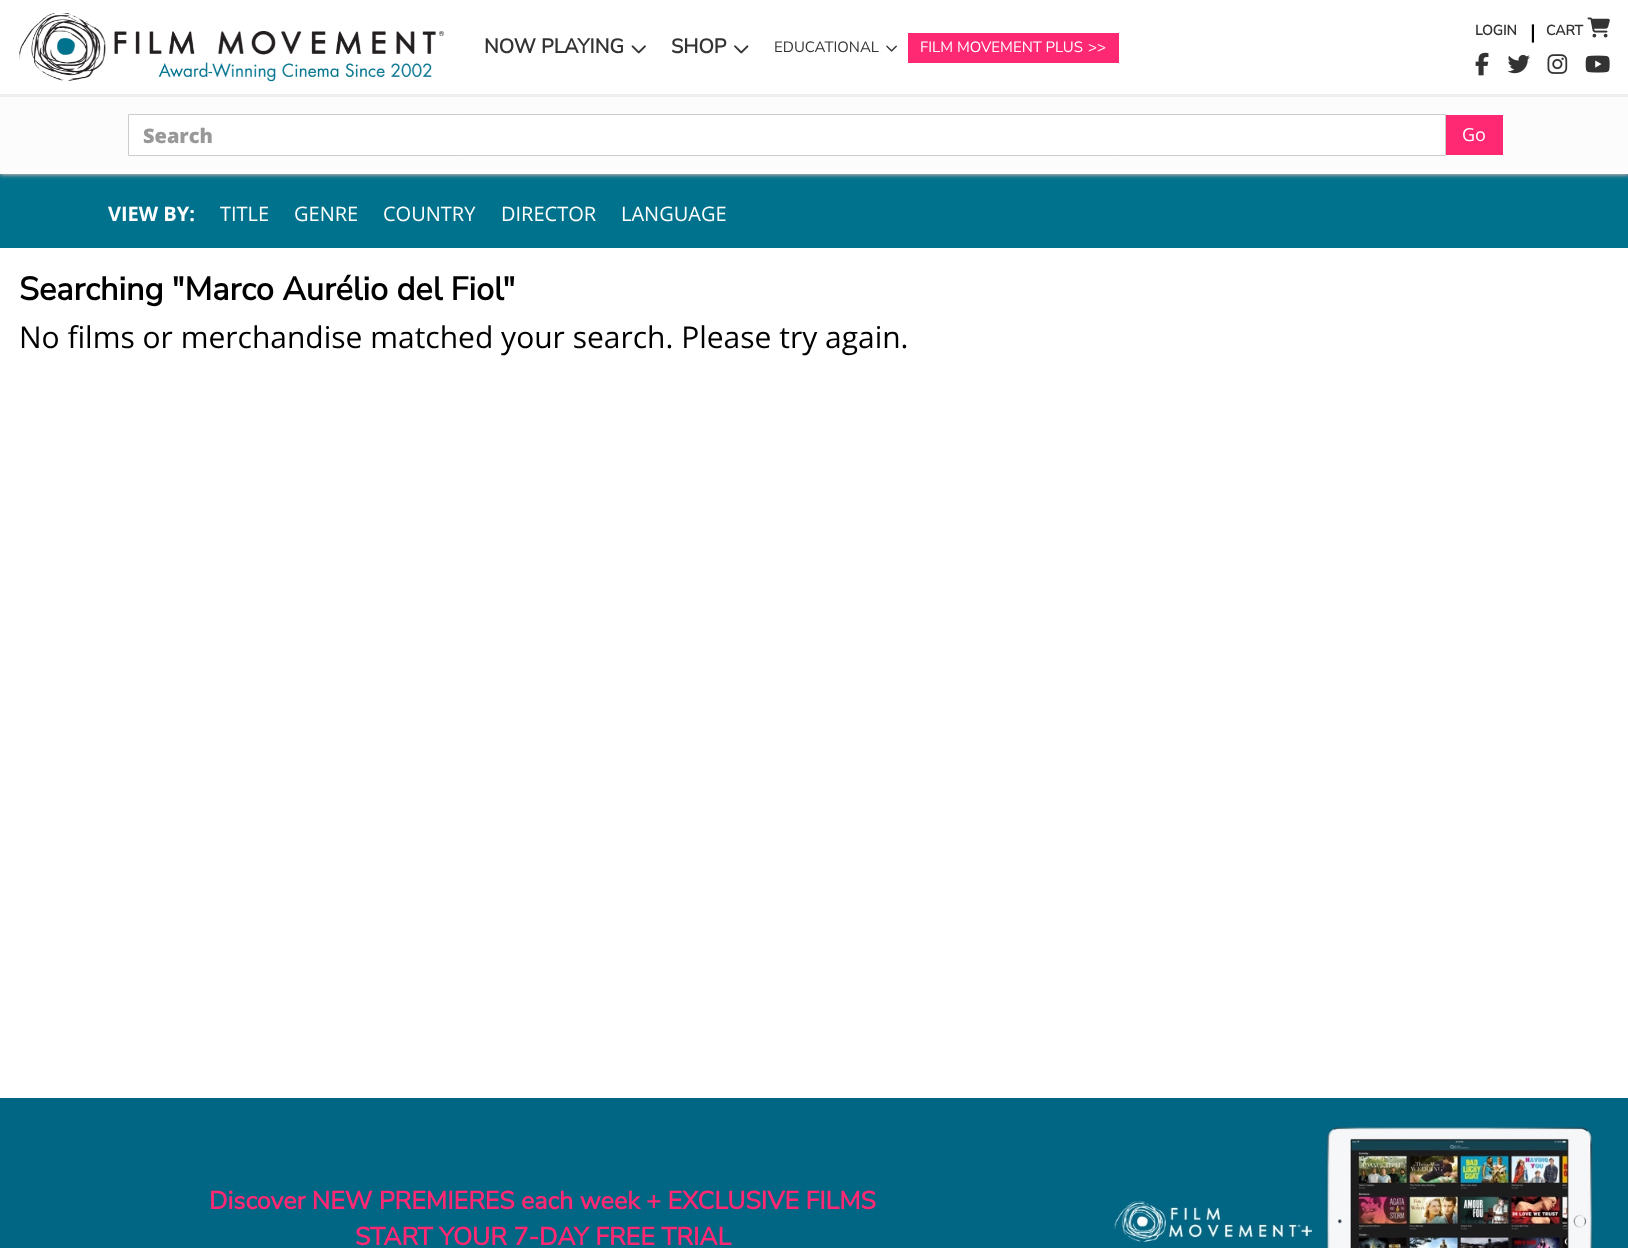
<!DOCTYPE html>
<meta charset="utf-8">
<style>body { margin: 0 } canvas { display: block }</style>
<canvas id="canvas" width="1628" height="1248"></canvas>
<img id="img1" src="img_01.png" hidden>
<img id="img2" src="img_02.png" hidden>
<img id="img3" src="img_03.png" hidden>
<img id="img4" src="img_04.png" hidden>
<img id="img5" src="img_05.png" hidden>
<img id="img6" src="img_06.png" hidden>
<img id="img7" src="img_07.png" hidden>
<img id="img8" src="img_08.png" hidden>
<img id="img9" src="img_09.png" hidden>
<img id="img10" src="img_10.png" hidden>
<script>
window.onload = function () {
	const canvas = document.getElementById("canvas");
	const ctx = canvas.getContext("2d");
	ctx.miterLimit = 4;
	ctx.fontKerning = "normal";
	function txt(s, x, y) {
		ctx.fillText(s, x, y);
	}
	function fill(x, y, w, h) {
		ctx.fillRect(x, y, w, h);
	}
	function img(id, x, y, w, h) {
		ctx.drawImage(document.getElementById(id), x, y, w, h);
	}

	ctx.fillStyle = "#FFFFFF";
	fill(0, 0, 1628, 1248);
	ctx.fillStyle = "#00728D";
	fill(0, 174, 1628, 74);
	ctx.fillStyle = "#000000";
	ctx.filter = "blur(2px)";
	ctx.beginPath();
	ctx.rect(0, 0, 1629, 174);
	ctx.fill();
	ctx.filter = "none";
	ctx.fillStyle = "#DDDDDD";
	ctx.filter = "blur(2px)";
	ctx.beginPath();
	ctx.rect(0, 95, 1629, 80);
	ctx.fill();
	ctx.filter = "none";
	ctx.fillStyle = "#FFFFFF";
	fill(0, 0, 1628, 94);
	img("img1", 1587, 17, 23, 21);
	img("img2", 1475, 52, 14, 24);
	img("img3", 1507, 54, 23, 20);
	img("img4", 1547, 54, 21, 20);
	img("img5", 1585, 55, 25, 18);
	img("img6", 19, 13, 425, 69);
	img("img7", 631, 45, 15, 9);
	img("img8", 734, 45, 15, 9);
	img("img9", 886, 45, 11, 7);
	ctx.fillStyle = "#FE2873";
	fill(908, 33, 211, 30);
	ctx.fillStyle = "#FCFCFC";
	fill(0, 97, 1628, 77);
	ctx.fillStyle = "#EEEEEE";
	fill(0, 94, 1628, 3);
	ctx.fillStyle = "#FFFFFF";
	ctx.beginPath();
	ctx.rect(128.5, 114.5, 1317, 41);
	ctx.fill();
	ctx.strokeStyle = "#CCCCCC";
	ctx.stroke();
	ctx.fillStyle = "#FE2873";
	fill(1446, 115, 57, 40);
	ctx.fillStyle = "#016684";
	fill(0, 1098, 1628, 150);
	img("img10", 1114, 1127, 479, 121);
	ctx.font = "bold 14px Nunito Sans";
	ctx.fillStyle = "#333333";
	txt("LOGIN", 1475, 35);
	ctx.font = "bold 20px Nunito Sans";
	ctx.fillStyle = "#000000";
	txt("|", 1530, 39);
	ctx.font = "bold 14px Nunito Sans";
	ctx.fillStyle = "#333333";
	txt("CART", 1546, 35);
	ctx.font = "bold 20px Nunito Sans";
	txt("NOW PLAYING", 484, 53);
	txt("SHOP", 671, 53);
	ctx.font = "200 15px Nunito Sans";
	txt("EDUCATIONAL", 774, 52);
	ctx.fillStyle = "#FFFFFF";
	txt("FILM MOVEMENT PLUS", 920, 52);
	txt(">>", 1088, 52);
	ctx.font = "800 20px Open Sans";
	ctx.fillStyle = "#999999";
	txt("Search", 143, 143);
	ctx.font = "18px Open Sans";
	ctx.fillStyle = "#FFFFFF";
	txt("Go", 1462, 141);
	ctx.font = "bold 20px Open Sans";
	txt("VIEW BY:", 108, 221);
	ctx.font = "20px Open Sans";
	txt("TITLE", 220, 221);
	txt("GENRE", 294, 221);
	txt("COUNTRY", 383, 221);
	txt("DIRECTOR", 501, 221);
	txt("LANGUAGE", 621, 221);
	ctx.font = "bold 32.5px Nunito Sans";
	ctx.fillStyle = "#000000";
	txt("Searching \"Marco Aurélio del Fiol\"", 19, 300);
	ctx.font = "30px Open Sans";
	txt("No films or merchandise matched your search. Please try again.", 19, 348);
	ctx.font = "bold 25px Nunito Sans";
	ctx.fillStyle = "#FE2873";
	txt("Discover NEW PREMIERES each week + EXCLUSIVE FILMS", 209, 1209);
	txt("START YOUR 7-DAY FREE TRIAL", 355, 1245);
};
</script>
